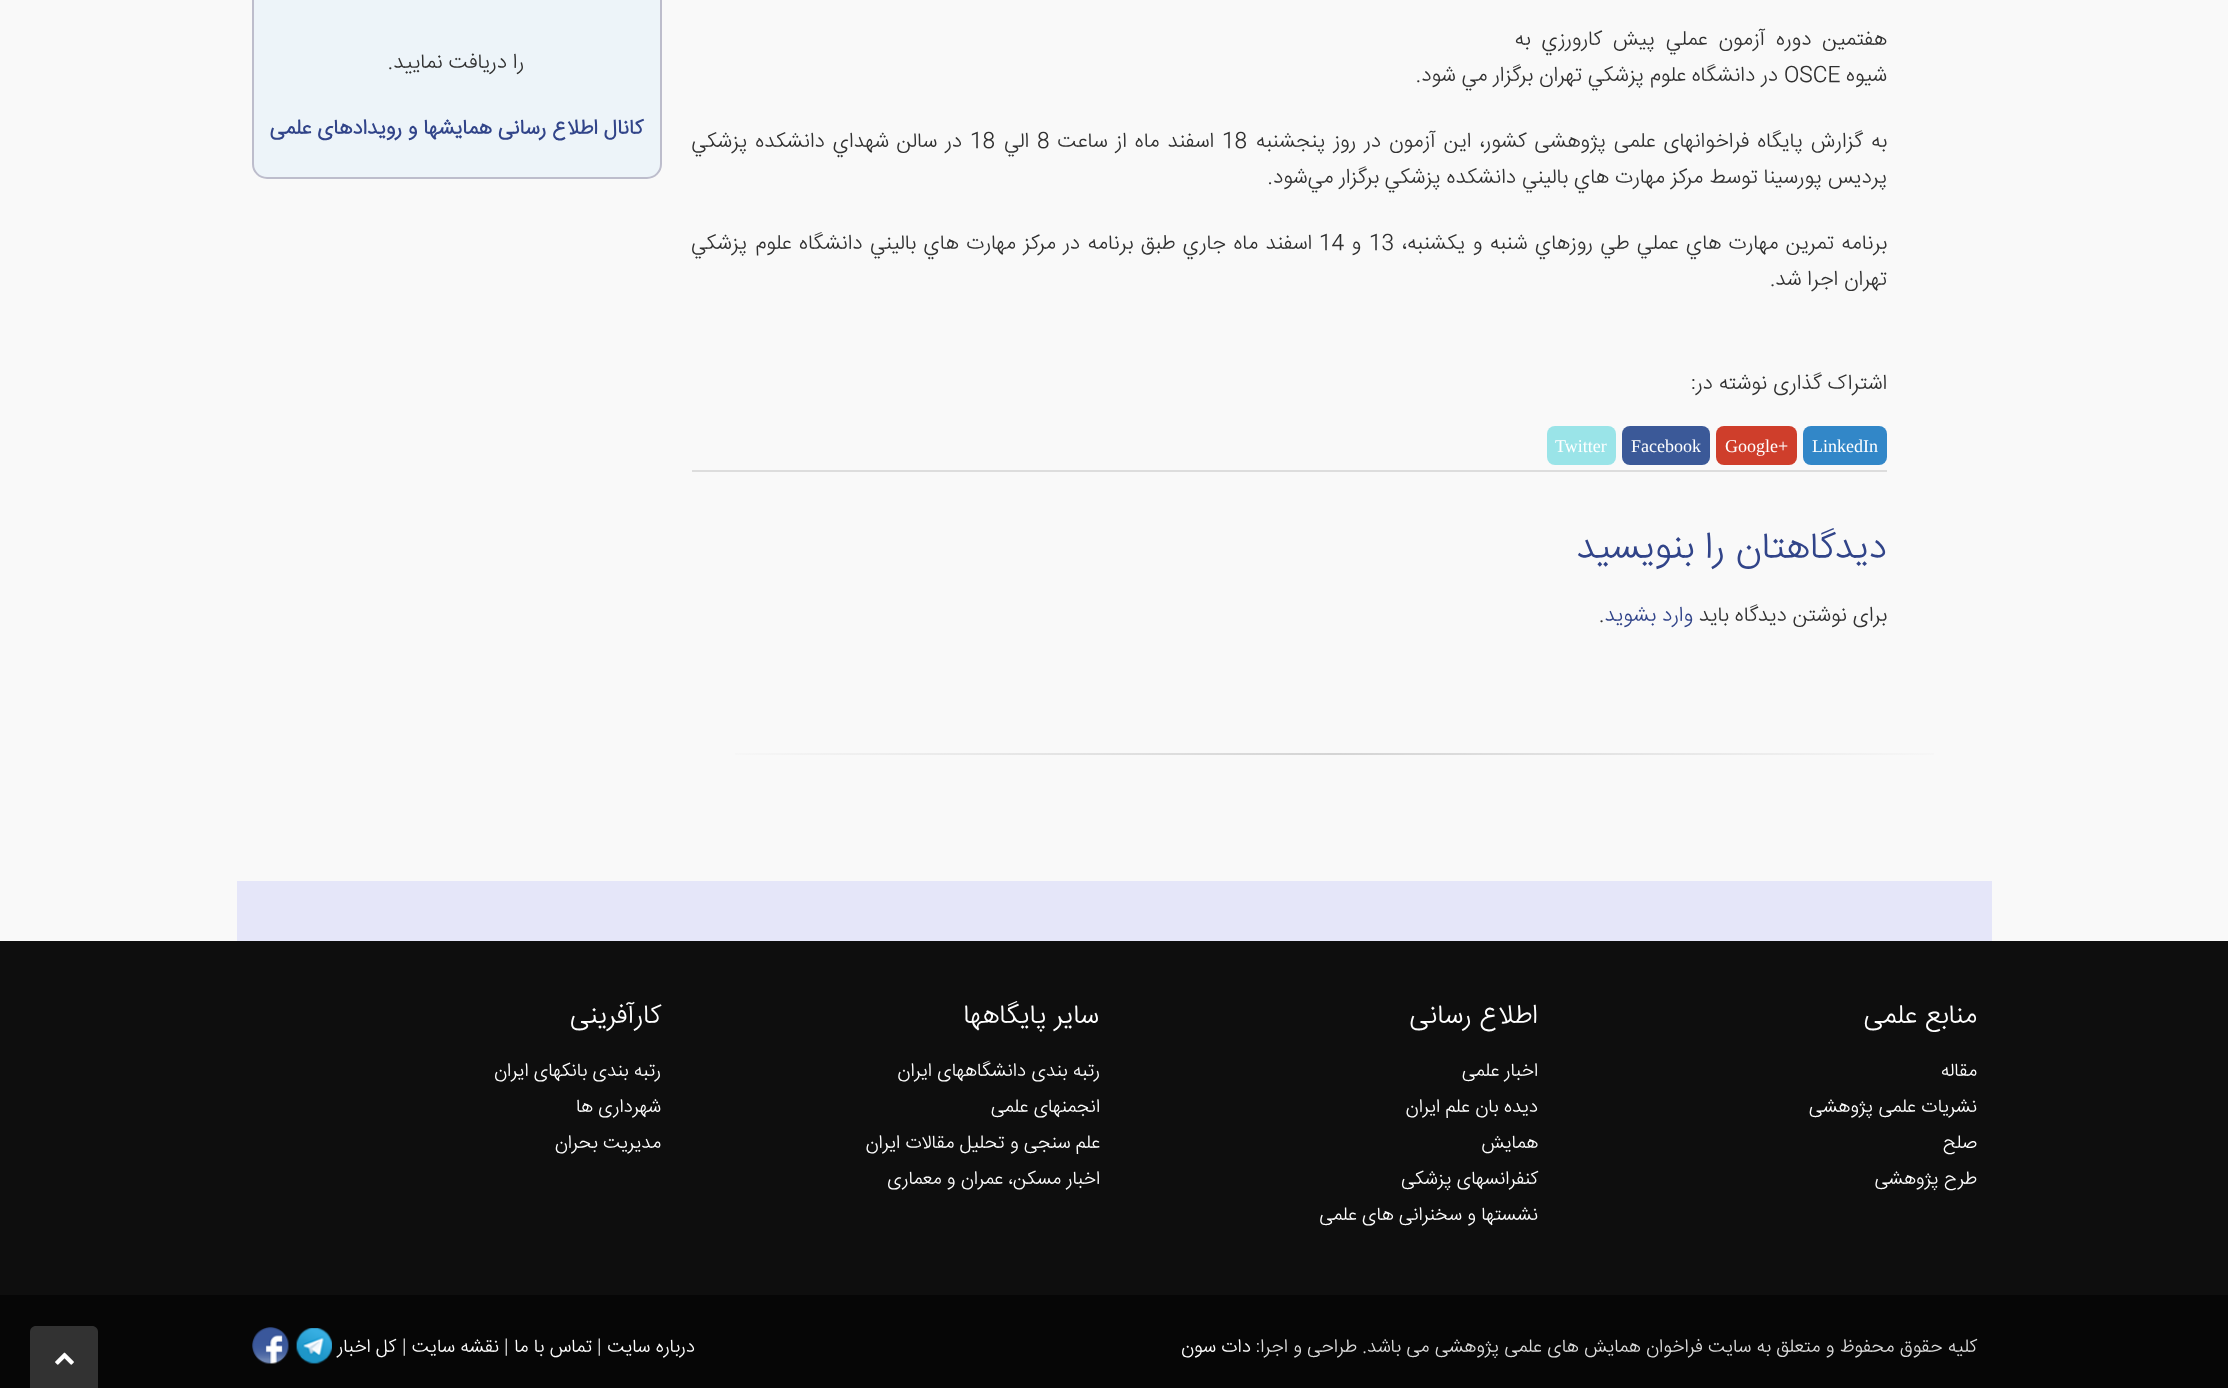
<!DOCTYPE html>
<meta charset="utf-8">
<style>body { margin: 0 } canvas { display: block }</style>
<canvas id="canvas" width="2228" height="1388"></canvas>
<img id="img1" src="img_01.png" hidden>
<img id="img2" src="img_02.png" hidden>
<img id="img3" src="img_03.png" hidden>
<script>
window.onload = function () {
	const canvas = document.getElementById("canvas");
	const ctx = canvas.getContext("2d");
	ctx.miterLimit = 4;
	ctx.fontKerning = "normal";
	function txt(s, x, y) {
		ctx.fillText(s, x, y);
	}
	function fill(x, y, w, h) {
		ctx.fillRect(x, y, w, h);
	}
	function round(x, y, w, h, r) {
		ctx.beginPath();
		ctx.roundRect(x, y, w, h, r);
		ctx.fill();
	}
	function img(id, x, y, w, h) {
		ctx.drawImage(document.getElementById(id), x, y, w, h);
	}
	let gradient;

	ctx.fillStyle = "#F9F9F9";
	fill(0, 0, 2228, 1388);
	ctx.fillStyle = "#3287C8";
	round(1803, 426, 84, 39, 8);
	ctx.fillStyle = "#CF3E2B";
	round(1716, 426, 81, 39, 8);
	ctx.fillStyle = "#3B5998";
	round(1622, 426, 88, 39, 8);
	ctx.fillStyle = "#9AE4E8";
	round(1547, 426, 69, 39, 8);
	ctx.fillStyle = "#DDDDDD";
	fill(692, 470, 1195, 2);
	gradient = ctx.createLinearGradient(1977, 754, 692, 754);
	gradient.addColorStop(0, "#F9F9F9");
	gradient.addColorStop(0.5, "#D4D4D4");
	gradient.addColorStop(1, "#F9F9F9");
	ctx.fillStyle = gradient;
	fill(735, 753, 1199, 2);
	ctx.fillStyle = "#EDF4F9";
	ctx.beginPath();
	ctx.roundRect(253, -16, 408, 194, 14);
	ctx.fill();
	ctx.strokeStyle = "#BDBDCC";
	ctx.lineWidth = 2;
	ctx.stroke();
	ctx.fillStyle = "#E5E6F9";
	fill(237, 881, 1755, 60);
	ctx.fillStyle = "#0E0E0E";
	fill(0, 941, 2228, 354);
	ctx.fillStyle = "#060606";
	fill(0, 1295, 2228, 93);
	img("img1", 296, 1328, 36, 36);
	img("img2", 252, 1327, 37, 37);
	ctx.fillStyle = "#323232";
	ctx.beginPath();
	ctx.moveTo(36, 1326);
	ctx.lineTo(92, 1326);
	ctx.bezierCurveTo(95.5, 1326, 98, 1328.5, 98, 1332);
	ctx.lineTo(98, 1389);
	ctx.lineTo(30, 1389);
	ctx.lineTo(30, 1332);
	ctx.bezierCurveTo(30, 1328.5, 32.5, 1326, 36, 1326);
	ctx.closePath();
	ctx.fill();
	img("img3", 55, 1352, 19, 13);
	ctx.wordSpacing = "5px";
	ctx.direction = "rtl";
	ctx.font = "300 21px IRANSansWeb";
	ctx.fillStyle = "#303030";
	txt("هفتمين دوره آزمون عملي پيش کارورزي به", 1887, 45);
	ctx.wordSpacing = "0px";
	txt("شيوه", 1887, 81);
	ctx.direction = "ltr";
	txt("OSCE", 1784, 81);
	ctx.direction = "rtl";
	txt("در دانشگاه", 1778, 81);
	txt("علوم پزشکي تهران برگزار مي شود.", 1686, 81);
	ctx.wordSpacing = "2.1px";
	txt("به گزارش پایگاه فراخوانهای علمی پژوهشی کشور، اين آزمون در روز پنجشنبه", 1887, 147);
	ctx.wordSpacing = "0px";
	ctx.direction = "ltr";
	txt("18", 1222, 147);
	ctx.wordSpacing = "2.1px";
	ctx.direction = "rtl";
	txt("اسفند ماه از ساعت", 1214, 147);
	ctx.wordSpacing = "0px";
	ctx.direction = "ltr";
	txt("8", 1037, 147);
	ctx.direction = "rtl";
	txt("الي", 1029, 147);
	ctx.direction = "ltr";
	txt("18", 970, 147);
	ctx.wordSpacing = "2.1px";
	ctx.direction = "rtl";
	txt("در سالن", 962, 147);
	txt("شهداي دانشکده پزشکي", 889, 147);
	ctx.wordSpacing = "0px";
	txt("پرديس پورسينا توسط مرکز مهارت هاي باليني دانشکده پزشکي", 1887, 183);
	txt("برگزار مي‌شود.", 1379, 183);
	ctx.wordSpacing = "1.5px";
	txt("برنامه تمرين مهارت هاي عملي طي روزهاي شنبه و", 1887, 249);
	ctx.wordSpacing = "0px";
	txt("يکشنبه،", 1465, 249);
	ctx.direction = "ltr";
	txt("13", 1369, 249);
	ctx.direction = "rtl";
	txt("و", 1361, 249);
	ctx.direction = "ltr";
	txt("14", 1319, 249);
	ctx.wordSpacing = "1.5px";
	ctx.direction = "rtl";
	txt("اسفند ماه جاري طبق برنامه در مرکز مهارت هاي باليني دانشگاه علوم", 1312, 249);
	ctx.wordSpacing = "0px";
	txt("پزشکي", 747, 249);
	txt("تهران اجرا شد.", 1887, 285);
	txt("اشتراک گذاری نوشته در:", 1887, 389);
	ctx.direction = "ltr";
	ctx.font = "18px Liberation Serif";
	ctx.fillStyle = "#FFFFFF";
	txt("LinkedIn", 1812, 452);
	txt("Google+", 1725, 452);
	txt("Facebook", 1631, 452);
	txt("Twitter", 1555, 452);
	ctx.direction = "rtl";
	ctx.font = "300 37.75px IRANSansWeb";
	ctx.fillStyle = "#314489";
	txt("دیدگاهتان را بنویسید", 1887, 558);
	ctx.font = "300 21px IRANSansWeb";
	ctx.fillStyle = "#303030";
	txt("برای نوشتن دیدگاه باید", 1887, 621);
	ctx.fillStyle = "#314489";
	txt("وارد بشوید", 1693, 621);
	ctx.direction = "ltr";
	ctx.fillStyle = "#303030";
	txt(".", 1599, 621);
	ctx.direction = "rtl";
	txt("را دریافت نمایید.", 524, 68);
	ctx.font = "bold 21px IRANSansWeb";
	ctx.fillStyle = "#314489";
	txt("کانال اطلاع رسانی همایشها و رویدادهای علمی", 643, 134);
	ctx.font = "300 27px IRANSansWeb";
	ctx.fillStyle = "#FFFFFF";
	txt("منابع علمی", 1977, 1023);
	ctx.font = "300 18.9px IRANSansWeb";
	txt("مقاله", 1977, 1076);
	txt("نشریات علمی پژوهشی", 1977, 1112);
	txt("صلح", 1977, 1148);
	txt("طرح پژوهشی", 1977, 1184);
	ctx.font = "300 27px IRANSansWeb";
	txt("اطلاع رسانی", 1538, 1023);
	ctx.font = "300 18.9px IRANSansWeb";
	txt("اخبار علمی", 1538, 1076);
	txt("دیده بان علم ایران", 1538, 1112);
	txt("همایش", 1538, 1148);
	txt("کنفرانسهای پزشکی", 1538, 1184);
	txt("نشستها و سخنرانی های علمی", 1538, 1220);
	ctx.font = "300 27px IRANSansWeb";
	txt("سایر پایگاهها", 1099, 1023);
	ctx.font = "300 18.9px IRANSansWeb";
	txt("رتبه بندی دانشگاههای ایران", 1100, 1076);
	txt("انجمنهای علمی", 1100, 1112);
	txt("علم سنجی و تحلیل مقالات ایران", 1100, 1148);
	txt("اخبار مسکن، عمران و معماری", 1100, 1184);
	ctx.font = "300 27px IRANSansWeb";
	txt("کارآفرینی", 661, 1023);
	ctx.font = "300 18.9px IRANSansWeb";
	txt("رتبه بندی بانکهای ایران", 661, 1076);
	txt("شهرداری ها", 661, 1112);
	txt("مدیریت بحران", 661, 1148);
	ctx.fillStyle = "#DBDBDB";
	txt("کلیه حقوق محفوظ و متعلق به سایت فراخوان همایش های علمی پژوهشی می باشد. طراحی و اجرا:", 1977, 1352);
	ctx.fillStyle = "#FFFFFF";
	txt("دات سون", 1251, 1352);
	txt("درباره سایت", 695, 1352);
	ctx.direction = "ltr";
	ctx.fillStyle = "#DBDBDB";
	txt("|", 597, 1352);
	ctx.direction = "rtl";
	ctx.fillStyle = "#FFFFFF";
	txt("تماس با ما", 592, 1352);
	ctx.direction = "ltr";
	ctx.fillStyle = "#DBDBDB";
	txt("|", 504, 1352);
	ctx.direction = "rtl";
	ctx.fillStyle = "#FFFFFF";
	txt("نقشه سایت", 499, 1352);
	ctx.direction = "ltr";
	ctx.fillStyle = "#DBDBDB";
	txt("|", 402, 1352);
	ctx.direction = "rtl";
	ctx.fillStyle = "#FFFFFF";
	txt("کل اخبار", 396, 1352);
};
</script>
